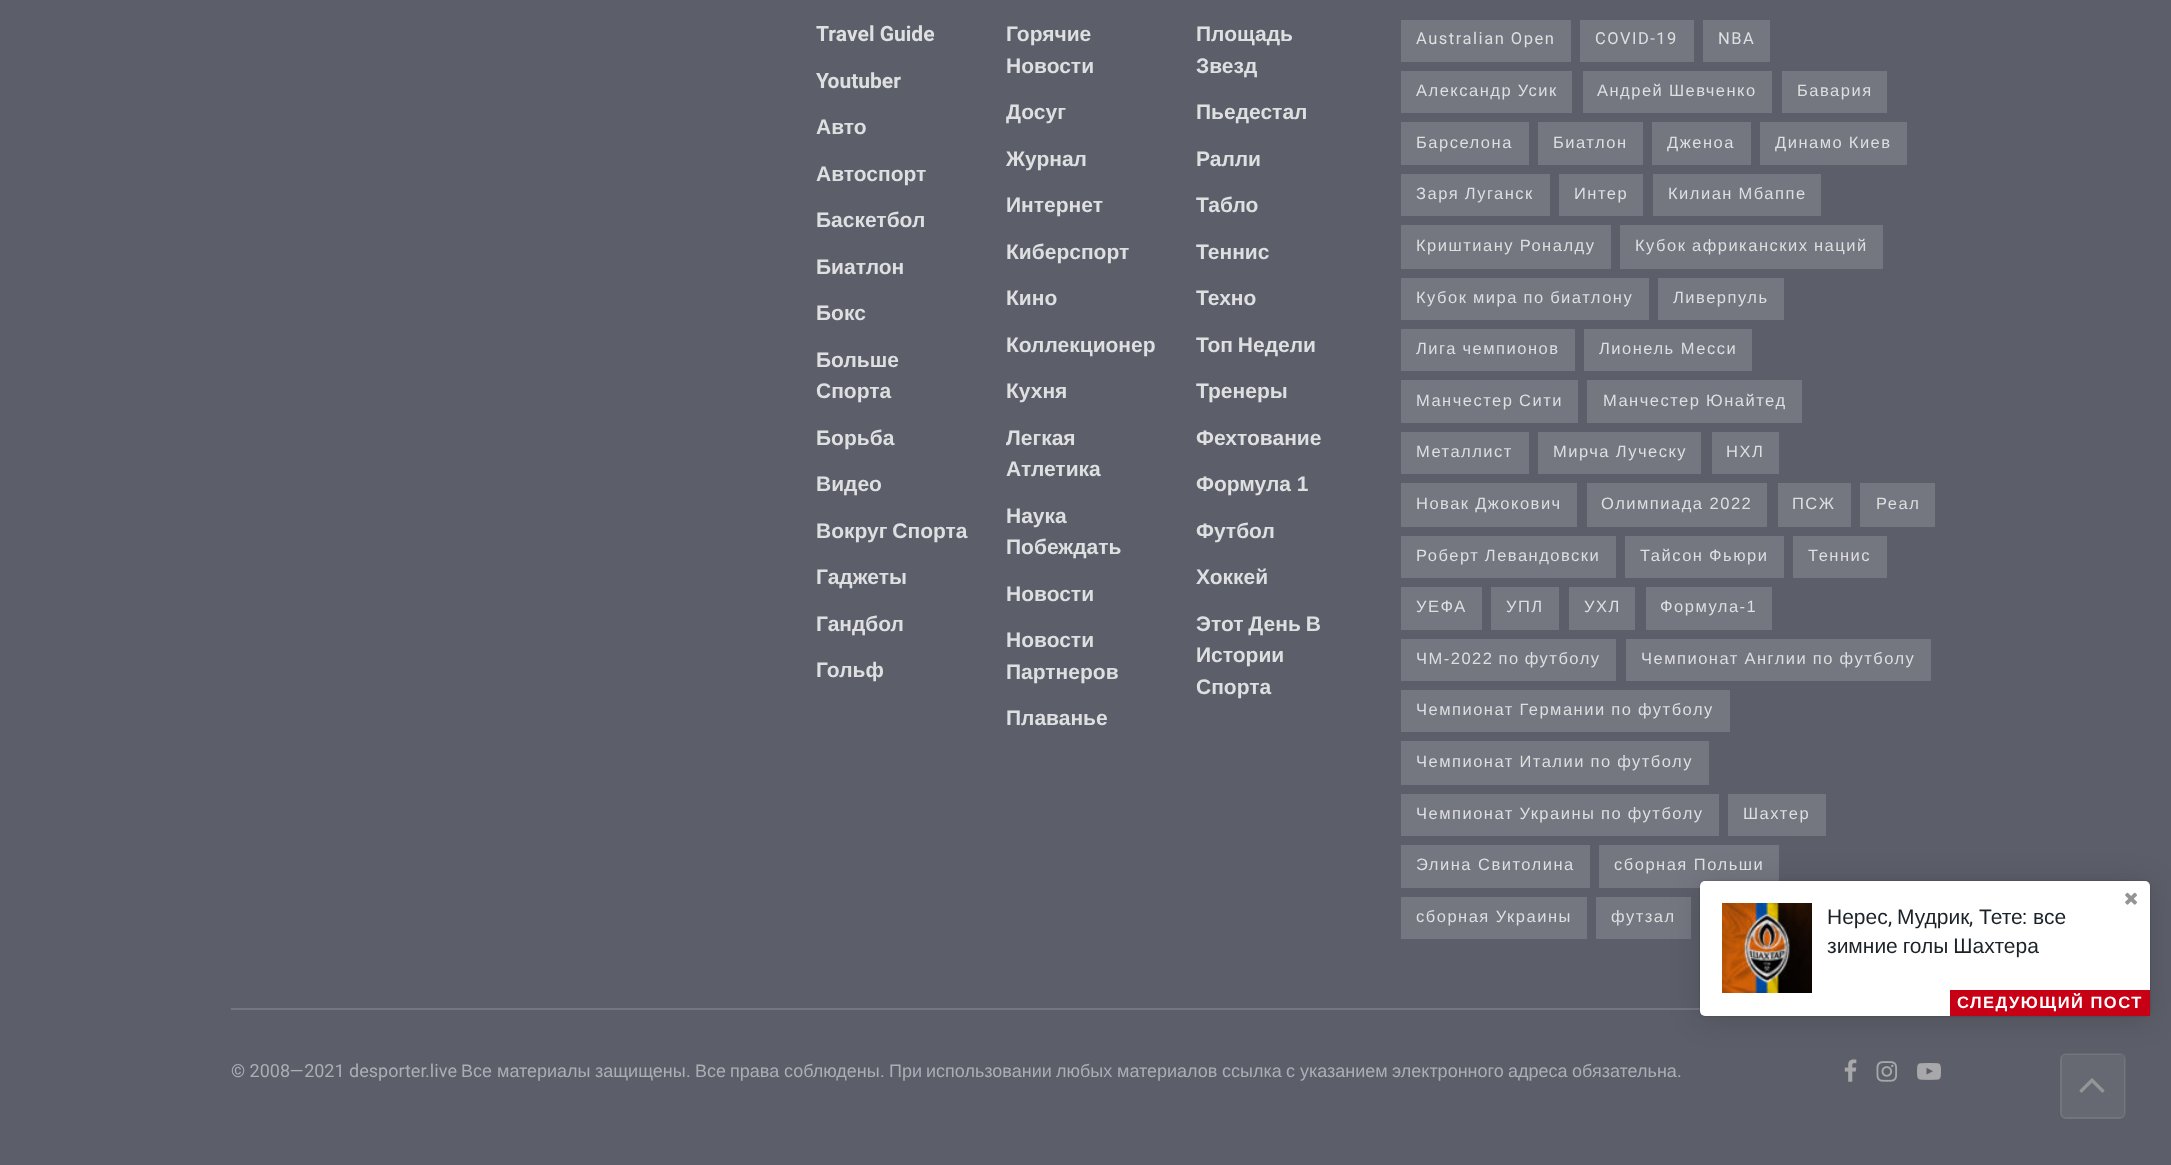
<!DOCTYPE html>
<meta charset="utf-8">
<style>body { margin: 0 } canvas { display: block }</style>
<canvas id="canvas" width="2171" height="1165"></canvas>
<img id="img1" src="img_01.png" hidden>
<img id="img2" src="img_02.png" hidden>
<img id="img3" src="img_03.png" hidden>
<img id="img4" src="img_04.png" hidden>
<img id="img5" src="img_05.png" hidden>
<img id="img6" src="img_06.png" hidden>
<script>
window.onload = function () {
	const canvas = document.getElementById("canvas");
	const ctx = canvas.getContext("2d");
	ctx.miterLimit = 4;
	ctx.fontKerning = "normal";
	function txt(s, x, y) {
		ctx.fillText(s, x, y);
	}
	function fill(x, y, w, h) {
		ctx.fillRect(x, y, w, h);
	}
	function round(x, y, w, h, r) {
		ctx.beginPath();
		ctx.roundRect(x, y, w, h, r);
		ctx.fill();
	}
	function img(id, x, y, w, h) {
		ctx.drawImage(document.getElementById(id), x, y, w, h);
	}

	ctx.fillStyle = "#5C5E69";
	fill(0, 0, 2171, 1165);
	ctx.fillStyle = "#747680";
	fill(1401, 20, 170, 42);
	fill(1580, 20, 114, 42);
	fill(1703, 20, 67, 42);
	fill(1401, 71, 171, 42);
	fill(1583, 71, 189, 42);
	fill(1782, 71, 105, 42);
	fill(1401, 122, 128, 43);
	fill(1538, 122, 105, 43);
	fill(1652, 122, 99, 43);
	fill(1760, 122, 147, 43);
	fill(1401, 174, 149, 42);
	fill(1559, 174, 84, 42);
	fill(1653, 174, 168, 42);
	fill(1401, 225, 210, 44);
	fill(1620, 225, 263, 44);
	fill(1401, 278, 248, 42);
	fill(1658, 278, 126, 42);
	fill(1401, 329, 174, 42);
	fill(1584, 329, 168, 42);
	fill(1401, 380, 177, 43);
	fill(1587, 380, 215, 43);
	fill(1401, 432, 128, 42);
	fill(1538, 432, 163, 42);
	fill(1712, 432, 67, 42);
	fill(1401, 483, 176, 44);
	fill(1587, 483, 180, 44);
	fill(1778, 483, 73, 44);
	fill(1860, 483, 75, 44);
	fill(1401, 536, 215, 42);
	fill(1625, 536, 159, 42);
	fill(1793, 536, 94, 42);
	fill(1401, 587, 81, 43);
	fill(1491, 587, 68, 43);
	fill(1569, 587, 66, 43);
	fill(1646, 587, 126, 43);
	fill(1401, 639, 215, 42);
	fill(1626, 639, 305, 42);
	fill(1401, 690, 329, 42);
	fill(1401, 741, 308, 44);
	fill(1401, 794, 318, 42);
	fill(1728, 794, 98, 42);
	fill(1401, 845, 189, 43);
	fill(1599, 845, 180, 43);
	fill(1401, 897, 186, 42);
	fill(1596, 897, 95, 42);
	fill(231, 1008, 1469, 2);
	img("img1", 1844, 1059, 13, 23);
	img("img2", 1876, 1061, 22, 21);
	img("img3", 1917, 1063, 24, 17);
	ctx.fillStyle = "rgba(0, 0, 0, 0.15)";
	ctx.filter = "blur(15px)";
	ctx.beginPath();
	ctx.roundRect(1700, 884, 450, 135, 5);
	ctx.fill();
	ctx.filter = "none";
	ctx.fillStyle = "rgba(0, 0, 0, 0.2)";
	ctx.filter = "blur(1px)";
	ctx.beginPath();
	ctx.roundRect(1700, 881, 450, 135, 5);
	ctx.fill();
	ctx.filter = "none";
	ctx.fillStyle = "#FFFFFF";
	round(1700, 881, 450, 135, 5);
	img("img4", 2125, 892, 12, 13);
	img("img5", 1722, 903, 90, 90);
	ctx.fillStyle = "#C70015";
	fill(1950, 990, 200, 26);
	ctx.fillStyle = "rgba(163, 164, 166, 0.15)";
	round(2058, 1052, 69, 69, 8);
	ctx.beginPath();
	ctx.roundRect(2061, 1054, 64, 64, 5);
	ctx.strokeStyle = "#73747D";
	ctx.lineWidth = 2;
	ctx.stroke();
	ctx.beginPath();
	ctx.roundRect(2059, 1053, 67, 67, 7);
	ctx.strokeStyle = "rgba(18, 19, 21, 0.11)";
	ctx.stroke();
	img("img6", 2079, 1078, 26, 15);
	ctx.font = "bold 21px Heebo";
	ctx.fillStyle = "#DEDFE1";
	txt("Travel Guide", 816, 41);
	ctx.font = "bold 21px Liberation Sans";
	txt("Горячие", 1006, 41);
	txt("Новости", 1006, 73);
	txt("Площадь", 1196, 41);
	txt("Звезд", 1196, 73);
	ctx.font = "bold 21px Heebo";
	txt("Youtuber", 816, 88);
	ctx.font = "bold 21px Liberation Sans";
	txt("Досуг", 1006, 119);
	txt("Пьедестал", 1196, 119);
	txt("Авто", 816, 134);
	txt("Журнал", 1006, 166);
	txt("Ралли", 1196, 166);
	txt("Автоспорт", 816, 181);
	txt("Интернет", 1006, 212);
	txt("Табло", 1196, 212);
	txt("Баскетбол", 816, 227);
	txt("Киберспорт", 1006, 259);
	txt("Теннис", 1196, 259);
	txt("Биатлон", 816, 274);
	txt("Кино", 1006, 305);
	txt("Техно", 1196, 305);
	txt("Бокс", 816, 320);
	txt("Коллекционер", 1006, 352);
	ctx.wordSpacing = "-1px";
	txt("Топ Недели", 1196, 352);
	ctx.wordSpacing = "0px";
	txt("Больше", 816, 367);
	txt("Спорта", 816, 398);
	txt("Кухня", 1006, 398);
	txt("Тренеры", 1196, 398);
	txt("Борьба", 816, 445);
	txt("Легкая", 1006, 445);
	txt("Атлетика", 1006, 476);
	txt("Фехтование", 1196, 445);
	txt("Видео", 816, 491);
	txt("Формула 1", 1196, 491);
	ctx.wordSpacing = "-1px";
	txt("Вокруг Спорта", 816, 538);
	ctx.wordSpacing = "0px";
	txt("Наука", 1006, 523);
	txt("Побеждать", 1006, 554);
	txt("Футбол", 1196, 538);
	txt("Гаджеты", 816, 584);
	txt("Хоккей", 1196, 584);
	txt("Новости", 1006, 601);
	txt("Гандбол", 816, 631);
	txt("Новости", 1006, 647);
	txt("Партнеров", 1006, 679);
	ctx.wordSpacing = "-1px";
	txt("Этот День В", 1196, 631);
	ctx.wordSpacing = "0px";
	txt("Истории", 1196, 662);
	txt("Спорта", 1196, 694);
	txt("Гольф", 816, 677);
	txt("Плаванье", 1006, 725);
	ctx.letterSpacing = "1.5px";
	ctx.font = "16.5px Heebo";
	txt("Australian Open", 1416, 44);
	txt("COVID-19", 1595, 44);
	txt("NBA", 1718, 44);
	ctx.wordSpacing = "-0.5px";
	ctx.font = "16.5px Liberation Sans";
	txt("Александр Усик", 1416, 96);
	txt("Андрей Шевченко", 1597, 96);
	ctx.wordSpacing = "0px";
	txt("Бавария", 1797, 96);
	txt("Барселона", 1416, 148);
	txt("Биатлон", 1553, 148);
	txt("Дженоа", 1667, 148);
	ctx.wordSpacing = "-0.5px";
	txt("Динамо Киев", 1775, 148);
	txt("Заря Луганск", 1416, 199);
	ctx.wordSpacing = "0px";
	txt("Интер", 1574, 199);
	ctx.wordSpacing = "-0.5px";
	txt("Килиан Мбаппе", 1668, 199);
	txt("Криштиану Роналду", 1416, 251);
	txt("Кубок африканских наций", 1635, 251);
	txt("Кубок мира по биатлону", 1416, 303);
	ctx.wordSpacing = "0px";
	txt("Ливерпуль", 1673, 303);
	ctx.wordSpacing = "-0.5px";
	txt("Лига чемпионов", 1416, 354);
	ctx.wordSpacing = "0px";
	txt("Лионель Месси", 1599, 354);
	ctx.wordSpacing = "-0.5px";
	txt("Манчестер Сити", 1416, 406);
	txt("Манчестер Юнайтед", 1603, 406);
	ctx.wordSpacing = "0px";
	txt("Металлист", 1416, 457);
	ctx.wordSpacing = "-0.5px";
	txt("Мирча Луческу", 1553, 457);
	ctx.wordSpacing = "0px";
	txt("НХЛ", 1726, 457);
	ctx.wordSpacing = "-0.5px";
	txt("Новак Джокович", 1416, 509);
	ctx.wordSpacing = "0px";
	txt("Олимпиада 2022", 1601, 509);
	txt("ПСЖ", 1792, 509);
	txt("Реал", 1876, 509);
	ctx.wordSpacing = "-0.5px";
	txt("Роберт Левандовски", 1416, 561);
	txt("Тайсон Фьюри", 1640, 561);
	ctx.wordSpacing = "0px";
	txt("Теннис", 1808, 561);
	txt("УЕФА", 1416, 612);
	txt("УПЛ", 1506, 612);
	txt("УХЛ", 1584, 612);
	txt("Формула-1", 1660, 612);
	ctx.wordSpacing = "-1px";
	txt("ЧМ-2022 по футболу", 1416, 664);
	ctx.wordSpacing = "-0.5px";
	txt("Чемпионат Англии по футболу", 1641, 664);
	txt("Чемпионат Германии по футболу", 1416, 715);
	txt("Чемпионат Италии по футболу", 1416, 767);
	txt("Чемпионат Украины по футболу", 1416, 819);
	ctx.wordSpacing = "0px";
	txt("Шахтер", 1743, 819);
	txt("Элина Свитолина", 1416, 870);
	txt("сборная Польши", 1614, 870);
	txt("сборная Украины", 1416, 922);
	txt("футзал", 1611, 922);
	ctx.letterSpacing = "0px";
	ctx.font = "18px Heebo";
	ctx.fillStyle = "#A9AFB3";
	txt("© 2008—2021 desporter.live", 231, 1077);
	ctx.font = "18px Liberation Sans";
	txt("Все", 461, 1077);
	txt("материалы", 497, 1077);
	txt("защищены", 595, 1077);
	ctx.font = "18px Heebo";
	txt(".", 686, 1077);
	ctx.font = "18px Liberation Sans";
	txt("Все", 695, 1077);
	txt("права", 730, 1077);
	txt("соблюдены", 784, 1077);
	ctx.font = "18px Heebo";
	txt(".", 880, 1077);
	ctx.font = "18px Liberation Sans";
	txt("При", 889, 1077);
	txt("использовании", 926, 1077);
	txt("любых", 1056, 1077);
	txt("материалов", 1117, 1077);
	txt("ссылка", 1222, 1077);
	txt("с", 1286, 1077);
	txt("указанием", 1300, 1077);
	txt("электронного", 1392, 1077);
	txt("адреса", 1508, 1077);
	txt("обязательна", 1572, 1077);
	ctx.font = "18px Heebo";
	txt(".", 1677, 1077);
	ctx.font = "21px Liberation Sans";
	ctx.fillStyle = "#1B2228";
	txt("Нерес", 1827, 924);
	ctx.font = "21px Heebo";
	txt(",", 1888, 924);
	ctx.font = "21px Liberation Sans";
	txt("Мудрик", 1897, 924);
	ctx.font = "21px Heebo";
	txt(",", 1969, 924);
	ctx.font = "21px Liberation Sans";
	txt("Тете", 1979, 924);
	ctx.font = "21px Heebo";
	txt(":", 2022, 924);
	ctx.font = "21px Liberation Sans";
	txt("все", 2033, 924);
	ctx.wordSpacing = "-1px";
	txt("зимние голы Шахтера", 1827, 953);
	ctx.letterSpacing = "1.5px";
	ctx.wordSpacing = "0px";
	ctx.font = "bold 16.5px Liberation Sans";
	ctx.fillStyle = "#FFFFFF";
	txt("СЛЕДУЮЩИЙ ПОСТ", 1957, 1008);
};
</script>
